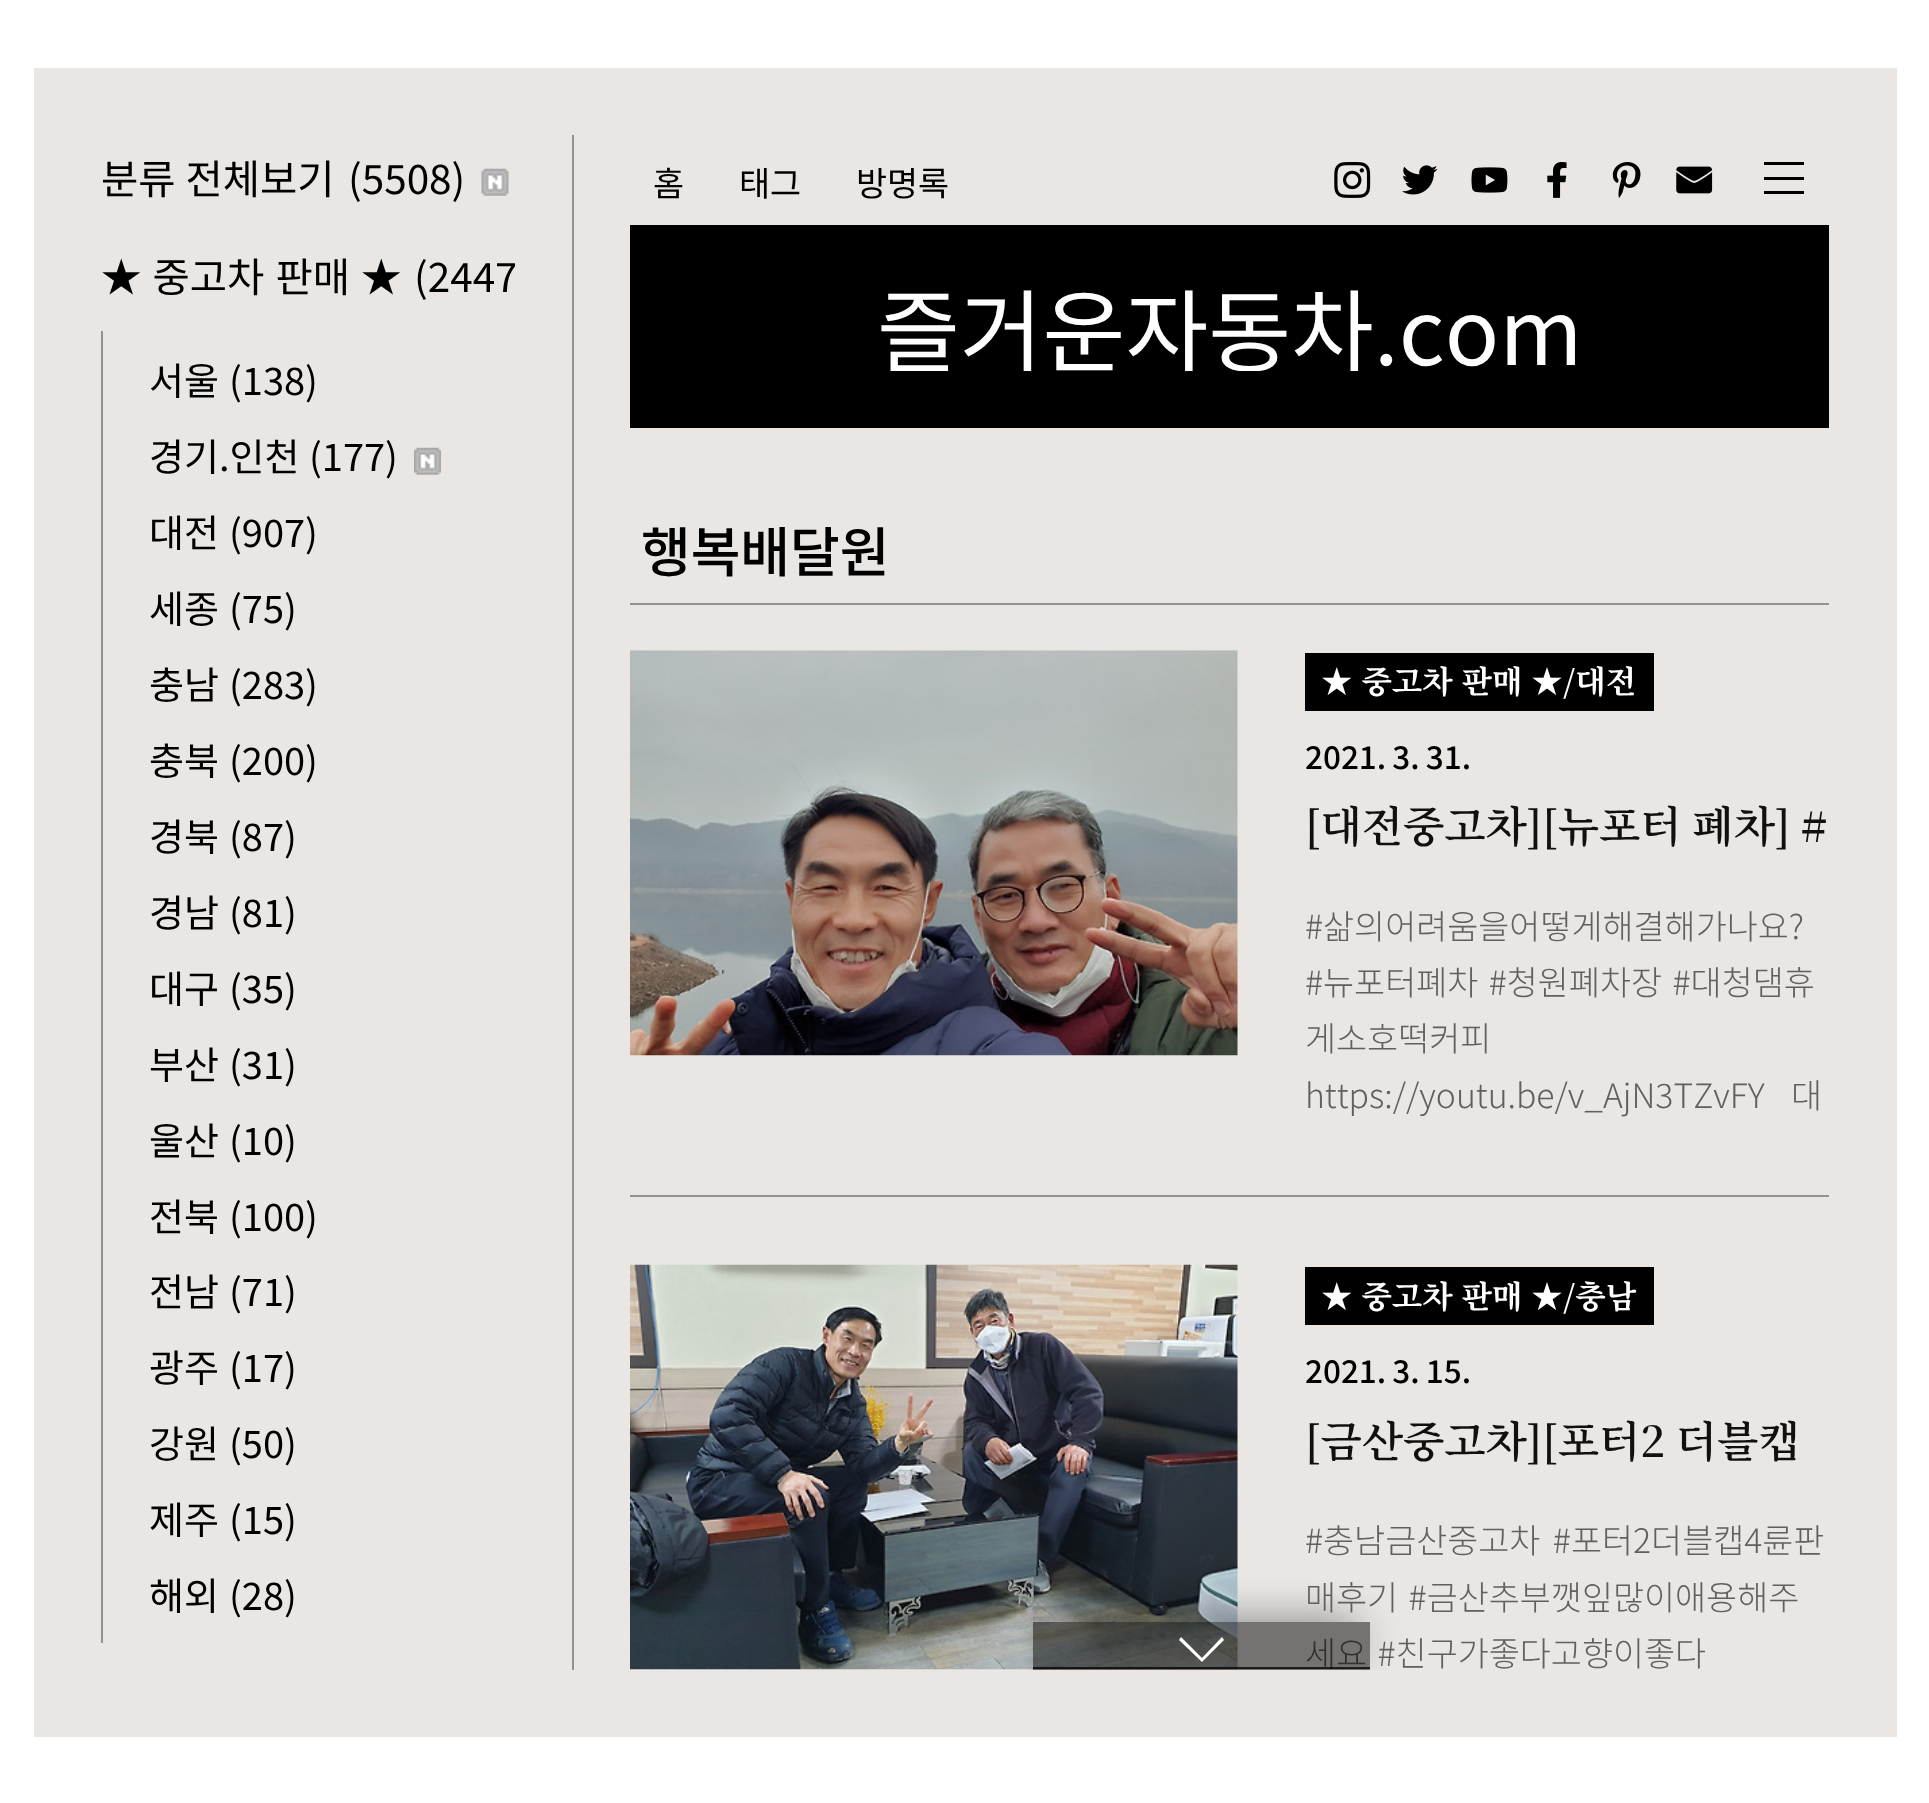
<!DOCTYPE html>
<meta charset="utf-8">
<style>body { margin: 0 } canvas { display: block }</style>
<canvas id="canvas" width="1929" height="1803"></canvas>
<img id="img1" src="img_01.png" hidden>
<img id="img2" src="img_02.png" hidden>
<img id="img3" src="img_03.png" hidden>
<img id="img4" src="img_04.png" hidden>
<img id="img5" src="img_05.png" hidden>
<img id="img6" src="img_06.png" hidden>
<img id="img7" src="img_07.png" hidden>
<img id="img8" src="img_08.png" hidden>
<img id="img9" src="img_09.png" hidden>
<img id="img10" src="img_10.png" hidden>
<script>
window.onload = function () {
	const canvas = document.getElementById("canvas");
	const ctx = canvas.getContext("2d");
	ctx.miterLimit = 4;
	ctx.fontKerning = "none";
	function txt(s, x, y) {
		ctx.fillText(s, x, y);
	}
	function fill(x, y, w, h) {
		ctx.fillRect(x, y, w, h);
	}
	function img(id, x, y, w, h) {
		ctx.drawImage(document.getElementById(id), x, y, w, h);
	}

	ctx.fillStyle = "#FFFFFF";
	fill(0, 0, 1929, 1803);
	ctx.fillStyle = "#E9E6E4";
	fill(34, 68, 1863, 1669);
	ctx.fillStyle = "#94918F";
	fill(572, 135, 2, 1535);
	img("img1", 481, 168, 28, 28);
	fill(101, 331, 2, 1312);
	img("img2", 414, 447, 27, 28);
	img("img3", 1334, 162, 37, 36);
	img("img4", 1402, 165, 36, 30);
	img("img5", 1471, 167, 37, 26);
	img("img6", 1547, 162, 20, 36);
	img("img7", 1612, 162, 29, 36);
	img("img8", 1676, 166, 37, 28);
	ctx.fillStyle = "#000000";
	ctx.beginPath();
	ctx.moveTo(1764, 162);
	ctx.lineTo(1804, 162);
	ctx.lineTo(1804, 165);
	ctx.lineTo(1764, 165);
	ctx.closePath();
	ctx.moveTo(1764, 191);
	ctx.lineTo(1804, 191);
	ctx.lineTo(1804, 194);
	ctx.lineTo(1764, 194);
	ctx.closePath();
	ctx.moveTo(1764, 177);
	ctx.lineTo(1804, 177);
	ctx.lineTo(1804, 180);
	ctx.lineTo(1764, 180);
	ctx.closePath();
	ctx.fill();
	fill(630, 225, 1199, 203);
	ctx.fillStyle = "#94918F";
	fill(630, 603, 1199, 2);
	img("img9", 630, 650, 608, 406);
	ctx.fillStyle = "#000000";
	fill(1305, 653, 349, 58);
	ctx.fillStyle = "#94918F";
	fill(630, 1195, 1199, 2);
	img("img10", 630, 1264, 608, 406);
	ctx.fillStyle = "#000000";
	fill(1305, 1267, 349, 58);
	ctx.save();
	ctx.beginPath();
	ctx.rect(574, 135, 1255, 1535);
	ctx.clip();
	ctx.beginPath();
	ctx.moveTo(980, 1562);
	ctx.lineTo(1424, 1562);
	ctx.lineTo(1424, 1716);
	ctx.lineTo(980, 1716);
	ctx.closePath();
	ctx.moveTo(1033, 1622);
	ctx.lineTo(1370, 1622);
	ctx.lineTo(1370, 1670);
	ctx.lineTo(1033, 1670);
	ctx.closePath();
	ctx.clip("evenodd");
	ctx.filter = "blur(22.5px)";
	ctx.beginPath();
	ctx.rect(1049, 1631, 306, 16);
	ctx.fill();
	ctx.filter = "none";
	ctx.restore();
	ctx.wordSpacing = "1px";
	ctx.font = "40.5px Noto Sans KR";
	txt("분류 전체보기", 101, 194);
	ctx.wordSpacing = "0px";
	txt("(5508)", 348, 194);
	ctx.wordSpacing = "2px";
	txt("★ 중고차 판매 ★", 101, 292);
	ctx.save();
	ctx.beginPath();
	ctx.rect(101, 218, 414, 1425);
	ctx.clip();
	ctx.wordSpacing = "0px";
	txt("(2447", 414, 292);
	ctx.restore();
	ctx.wordSpacing = "0px";
	ctx.font = "38px Noto Sans KR";
	txt("서울", 149, 395);
	txt("(138)", 229, 395);
	txt("경기.인천", 149, 471);
	txt("(177)", 309, 471);
	txt("대전", 149, 547);
	txt("(907)", 229, 547);
	txt("세종", 149, 623);
	txt("(75)", 229, 623);
	txt("충남", 149, 699);
	txt("(283)", 229, 699);
	txt("충북", 149, 775);
	txt("(200)", 229, 775);
	txt("경북", 149, 851);
	txt("(87)", 229, 851);
	txt("경남", 149, 927);
	txt("(81)", 229, 927);
	txt("대구", 149, 1003);
	txt("(35)", 229, 1003);
	txt("부산", 149, 1079);
	txt("(31)", 229, 1079);
	txt("울산", 149, 1155);
	txt("(10)", 229, 1155);
	txt("전북", 149, 1231);
	txt("(100)", 229, 1231);
	txt("전남", 149, 1306);
	txt("(71)", 229, 1306);
	txt("광주", 149, 1382);
	txt("(17)", 229, 1382);
	txt("강원", 149, 1458);
	txt("(50)", 229, 1458);
	txt("제주", 149, 1534);
	txt("(15)", 229, 1534);
	txt("해외", 149, 1610);
	txt("(28)", 229, 1610);
	ctx.font = "33.75px Noto Sans KR";
	txt("홈", 653, 196);
	txt("태그", 739, 196);
	txt("방명록", 856, 196);
	ctx.save();
	ctx.beginPath();
	ctx.rect(878, 281, 704, 90);
	ctx.clip();
	ctx.font = "90px Noto Sans KR";
	ctx.fillStyle = "#FFFFFF";
	txt("즐거운자동차.com", 877, 365);
	ctx.restore();
	ctx.font = "500 54px Noto Sans KR";
	txt("행복배달원", 641, 572);
	ctx.wordSpacing = "1px";
	ctx.font = "bold 31.5px Noto Serif KR";
	ctx.fillStyle = "#FFFFFF";
	txt("★ 중고차 판매 ★/대전", 1321, 693);
	ctx.wordSpacing = "-1px";
	ctx.font = "500 31.5px Noto Sans KR";
	ctx.fillStyle = "#000000";
	txt("2021. 3. 31.", 1305, 769);
	ctx.wordSpacing = "0px";
	ctx.font = "600 42.75px Noto Serif KR";
	ctx.fillStyle = "#101010";
	txt("[대전중고차][뉴포터 폐차] #", 1305, 842);
	ctx.font = "300 33.75px Noto Sans KR";
	ctx.fillStyle = "#606060";
	txt("#삶의어려움을어떻게해결해가나요?", 1305, 939);
	ctx.wordSpacing = "3px";
	txt("#뉴포터폐차 #청원폐차장 #대청댐휴", 1305, 995);
	ctx.wordSpacing = "0px";
	txt("게소호떡커피", 1305, 1051);
	ctx.wordSpacing = "19px";
	txt("https://youtu.be/v_AjN3TZvFY 대", 1305, 1108);
	ctx.wordSpacing = "1px";
	ctx.font = "bold 31.5px Noto Serif KR";
	ctx.fillStyle = "#FFFFFF";
	txt("★ 중고차 판매 ★/충남", 1321, 1308);
	ctx.wordSpacing = "-1px";
	ctx.font = "500 31.5px Noto Sans KR";
	ctx.fillStyle = "#000000";
	txt("2021. 3. 15.", 1305, 1383);
	ctx.wordSpacing = "0px";
	ctx.font = "600 42.75px Noto Serif KR";
	ctx.fillStyle = "#101010";
	txt("[금산중고차][포터2 더블캡", 1305, 1457);
	ctx.wordSpacing = "5px";
	ctx.font = "300 33.75px Noto Sans KR";
	ctx.fillStyle = "#606060";
	txt("#충남금산중고차 #포터2더블캡4륜판", 1305, 1553);
	ctx.wordSpacing = "3px";
	txt("매후기 #금산추부깻잎많이애용해주", 1305, 1610);
	txt("세요 #친구가좋다고향이좋다", 1305, 1666);
	ctx.fillStyle = "rgba(0, 0, 0, 0.5)";
	fill(1033, 1622, 337, 48);
	ctx.fillStyle = "rgba(0, 0, 0, 0.75)";
	fill(1033, 1667, 337, 2);
	ctx.fillStyle = "#FFFFFF";
	ctx.beginPath();
	ctx.moveTo(1202, 1662);
	ctx.lineTo(1179, 1640);
	ctx.lineTo(1181, 1637);
	ctx.lineTo(1202, 1658);
	ctx.lineTo(1222, 1637);
	ctx.lineTo(1224, 1640);
	ctx.closePath();
	ctx.fill();
};
</script>
